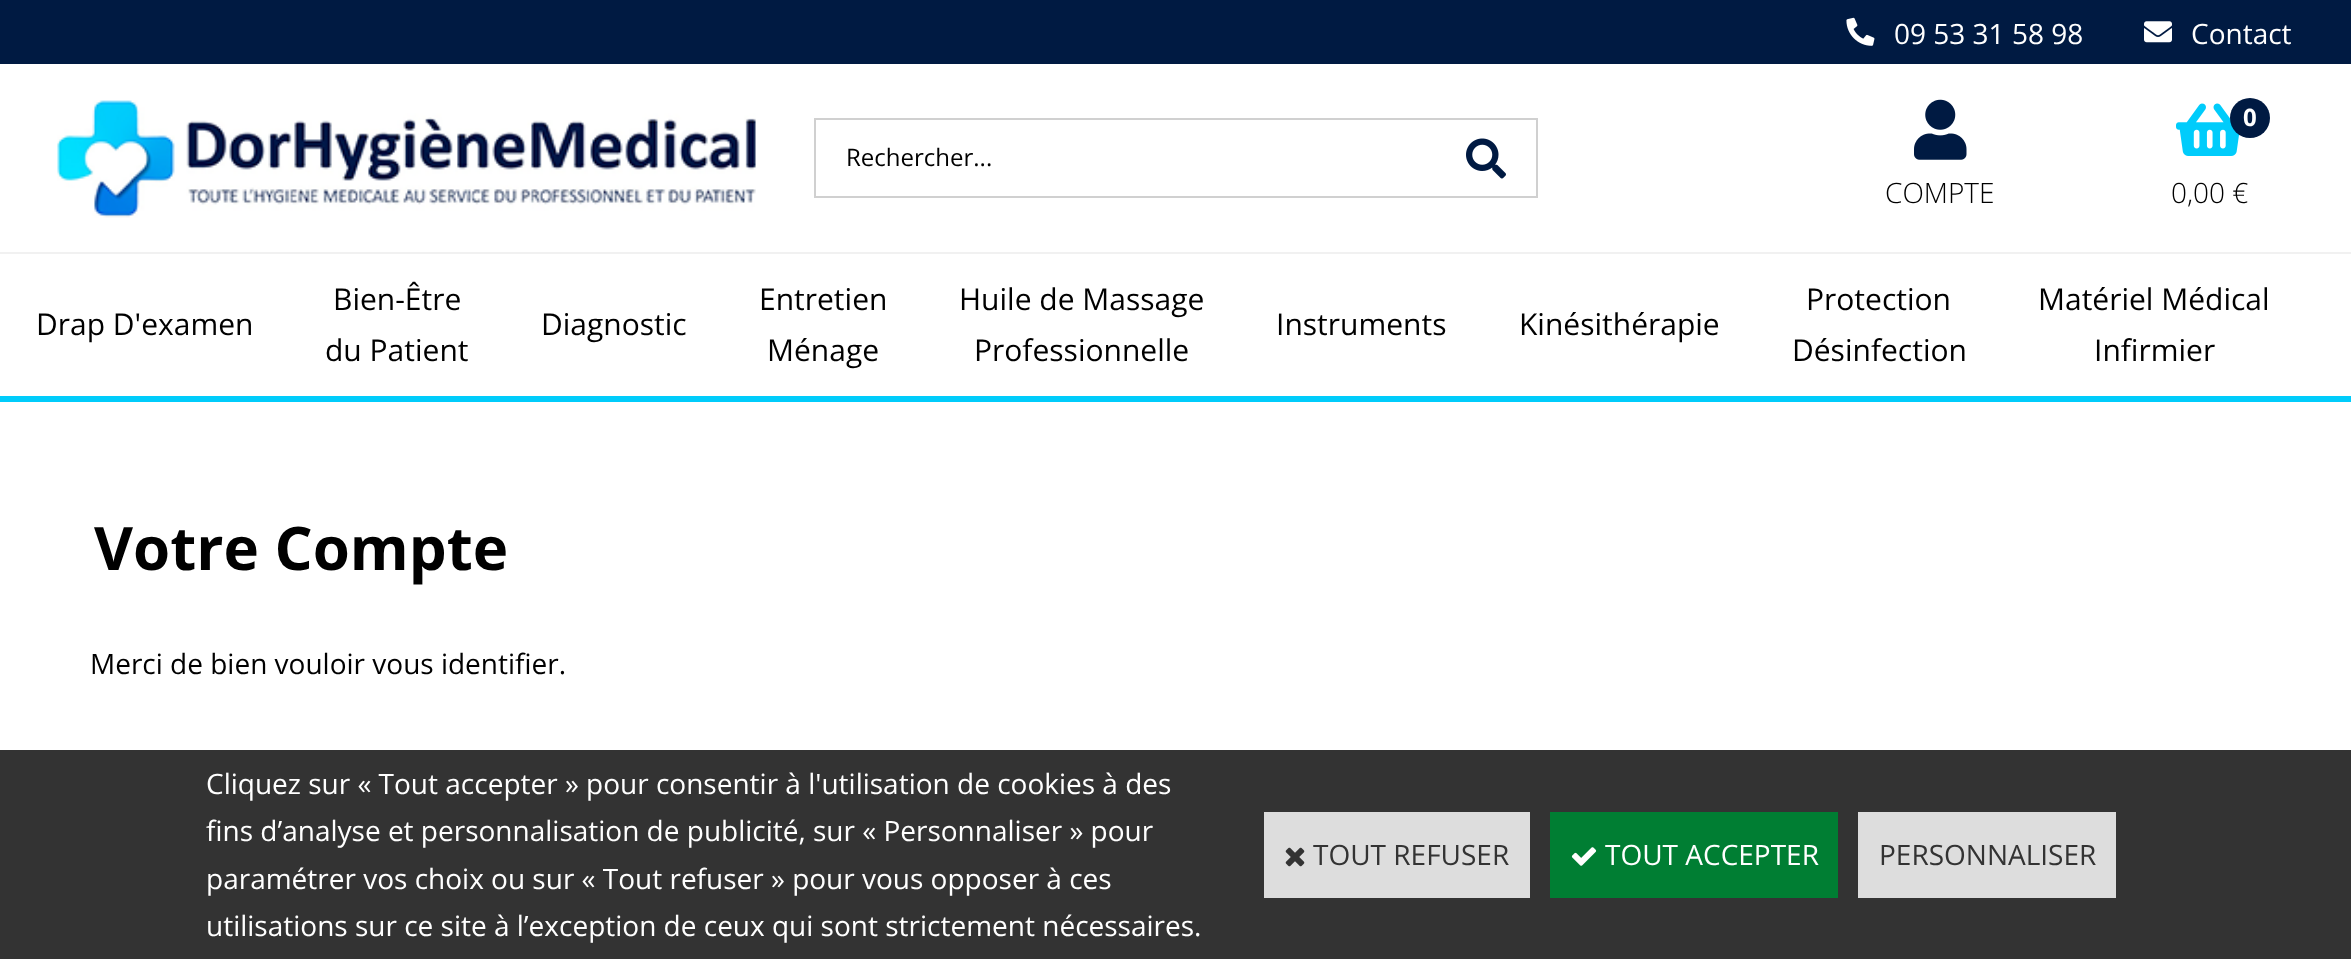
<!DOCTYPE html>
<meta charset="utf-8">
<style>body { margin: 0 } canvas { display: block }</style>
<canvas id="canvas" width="2351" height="959"></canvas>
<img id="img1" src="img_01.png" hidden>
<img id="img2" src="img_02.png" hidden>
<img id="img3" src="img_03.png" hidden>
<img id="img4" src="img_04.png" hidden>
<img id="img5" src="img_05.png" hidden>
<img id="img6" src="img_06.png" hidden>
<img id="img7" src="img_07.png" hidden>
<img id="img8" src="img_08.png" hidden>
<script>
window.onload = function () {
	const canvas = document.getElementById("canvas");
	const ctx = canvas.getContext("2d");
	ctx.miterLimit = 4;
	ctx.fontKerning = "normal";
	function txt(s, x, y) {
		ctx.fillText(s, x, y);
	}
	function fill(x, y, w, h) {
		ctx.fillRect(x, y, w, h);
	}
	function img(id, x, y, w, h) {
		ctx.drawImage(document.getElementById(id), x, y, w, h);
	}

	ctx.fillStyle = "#FFFFFF";
	fill(0, 0, 2351, 959);
	ctx.fillStyle = "#001A42";
	fill(0, 0, 2351, 64);
	img("img1", 1846, 17, 29, 29);
	img("img2", 2144, 21, 28, 22);
	img("img3", 57, 100, 699, 118);
	ctx.fillStyle = "#D0D0D0";
	fill(814, 118, 724, 2);
	fill(814, 196, 622, 2);
	fill(814, 118, 2, 80);
	fill(1536, 118, 2, 80);
	fill(1436, 196, 102, 2);
	img("img4", 1466, 138, 40, 41);
	img("img5", 1914, 99, 53, 61);
	img("img6", 2176, 103, 64, 53);
	ctx.fillStyle = "#001A42";
	ctx.beginPath();
	ctx.arc(2250, 118, 20, 0, Math.PI * 2);
	ctx.fill();
	ctx.fillStyle = "#F1F1F1";
	fill(0, 252, 2351, 2);
	ctx.fillStyle = "#00CCFB";
	fill(0, 396, 2351, 6);
	ctx.fillStyle = "#333333";
	fill(0, 750, 2351, 209);
	ctx.fillStyle = "#DDDDDD";
	fill(1264, 812, 266, 86);
	img("img7", 1285, 847, 20, 20);
	ctx.fillStyle = "#007E33";
	fill(1550, 812, 288, 86);
	img("img8", 1571, 847, 26, 19);
	ctx.fillStyle = "#DDDDDD";
	fill(1858, 812, 258, 86);
	ctx.font = "28px Open Sans";
	ctx.fillStyle = "#FFFFFF";
	txt("09 53 31 58 98", 1894, 44);
	txt("Contact", 2191, 44);
	ctx.font = "24px Open Sans";
	ctx.fillStyle = "#000000";
	txt("Rechercher...", 846, 166);
	ctx.font = "300 28px Open Sans";
	txt("COMPTE", 1885, 203);
	ctx.font = "bold 24px Open Sans";
	ctx.fillStyle = "#FFFFFF";
	txt("0", 2243, 126);
	ctx.font = "300 28px Open Sans";
	ctx.fillStyle = "#000000";
	txt("0,00 €", 2171, 203);
	ctx.font = "30px Open Sans";
	txt("Drap D'examen", 36, 335);
	txt("Bien-Être", 333, 310);
	txt("du Patient", 325, 361);
	txt("Diagnostic", 541, 335);
	txt("Entretien", 759, 310);
	txt("Ménage", 767, 361);
	txt("Huile de Massage", 959, 310);
	txt("Professionnelle", 974, 361);
	txt("Instruments", 1276, 335);
	txt("Kinésithérapie", 1519, 335);
	txt("Protection", 1806, 310);
	txt("Désinfection", 1792, 361);
	txt("Matériel Médical", 2038, 310);
	txt("Infirmier", 2094, 361);
	ctx.font = "bold 60px Open Sans";
	txt("Votre Compte", 94, 570);
	ctx.font = "28px Open Sans";
	txt("Merci de bien vouloir vous identifier.", 90, 674);
	ctx.fillStyle = "#FFFFFF";
	txt("Cliquez sur « Tout accepter » pour consentir à l'utilisation de cookies à des", 206, 794);
	txt("fins d’analyse et personnalisation de publicité, sur « Personnaliser » pour", 206, 841);
	txt("paramétrer vos choix ou sur « Tout refuser » pour vous opposer à ces", 206, 889);
	txt("utilisations sur ce site à l’exception de ceux qui sont strictement nécessaires.", 206, 936);
	ctx.fillStyle = "#333333";
	txt("TOUT REFUSER", 1313, 865);
	ctx.fillStyle = "#FFFFFF";
	txt("TOUT ACCEPTER", 1605, 865);
	ctx.fillStyle = "#333333";
	txt("PERSONNALISER", 1879, 865);
};
</script>
